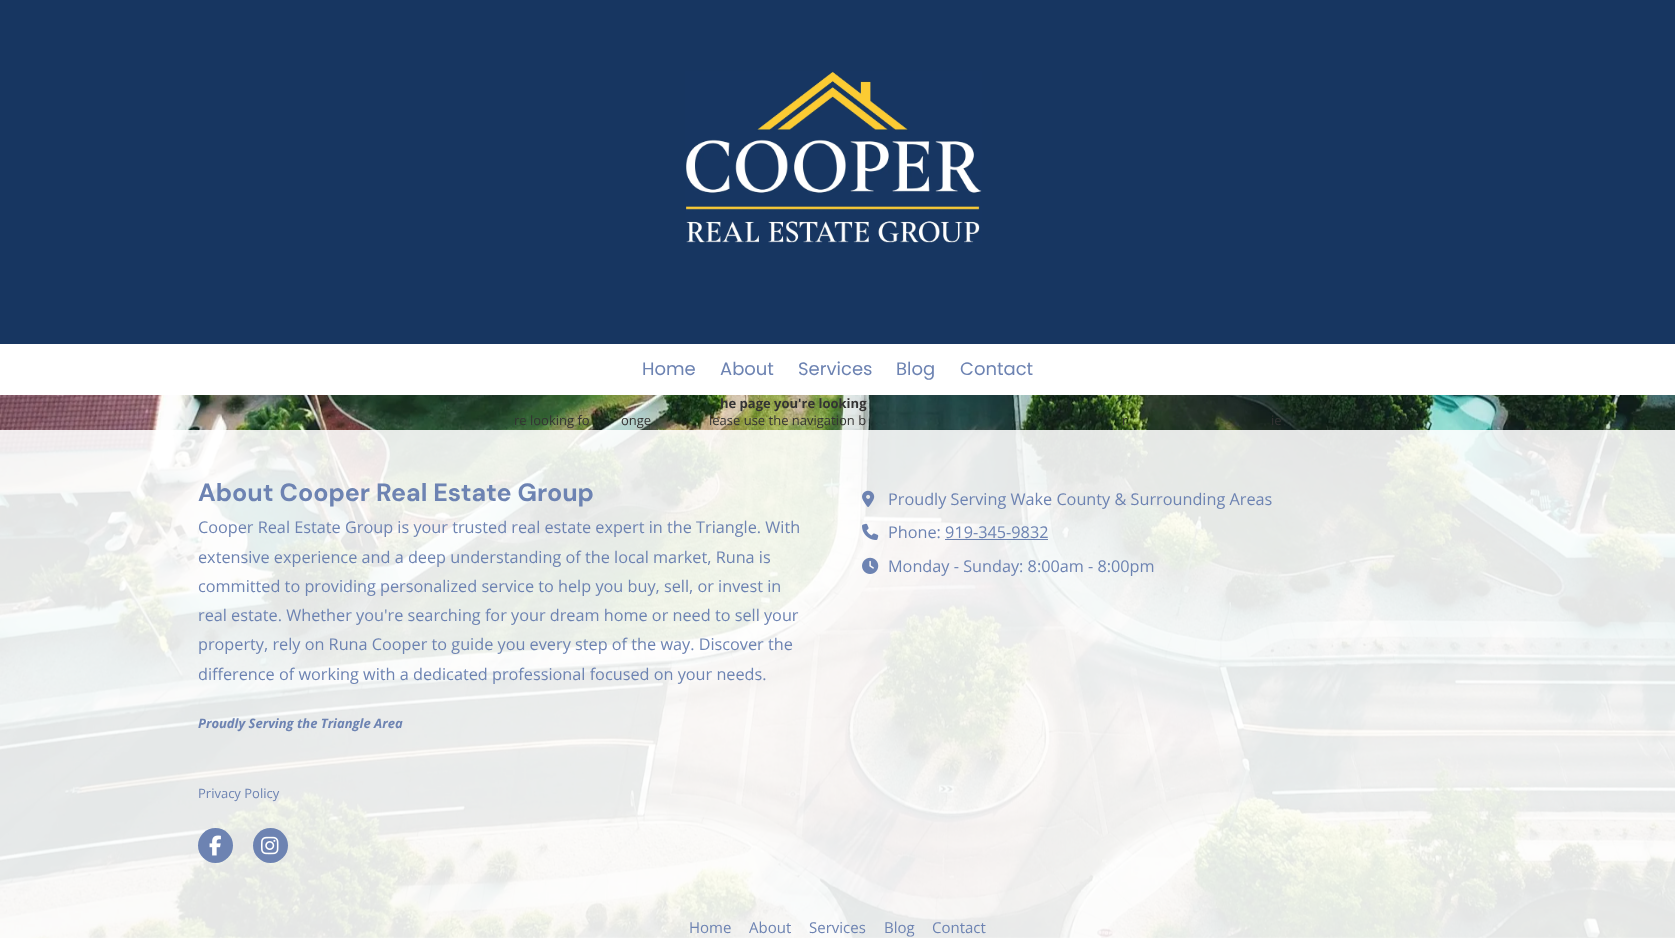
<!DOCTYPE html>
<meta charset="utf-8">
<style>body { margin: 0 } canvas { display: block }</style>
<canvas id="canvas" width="1675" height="938"></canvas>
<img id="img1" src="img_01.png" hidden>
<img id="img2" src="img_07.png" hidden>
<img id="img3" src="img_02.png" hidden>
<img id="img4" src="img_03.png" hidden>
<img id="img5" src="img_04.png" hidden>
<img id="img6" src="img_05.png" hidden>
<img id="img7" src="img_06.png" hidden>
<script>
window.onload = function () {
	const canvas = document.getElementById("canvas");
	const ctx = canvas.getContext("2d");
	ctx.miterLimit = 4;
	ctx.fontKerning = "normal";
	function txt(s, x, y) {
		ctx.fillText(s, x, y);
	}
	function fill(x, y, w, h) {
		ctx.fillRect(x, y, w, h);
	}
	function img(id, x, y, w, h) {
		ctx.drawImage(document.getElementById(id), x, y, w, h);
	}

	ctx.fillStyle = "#FFFFFF";
	fill(0, 0, 1675, 938);
	ctx.fillStyle = "#173661";
	fill(0, 0, 1675, 344);
	img("img1", 685, 71, 297, 173);
	img("img2", 0, 395, 1675, 543);
	ctx.fillStyle = "rgba(255, 255, 255, 0.89)";
	fill(0, 430, 1675, 508);
	ctx.fillStyle = "#6D83B2";
	ctx.beginPath();
	ctx.arc(215.5, 845.5, 17.5, 0, Math.PI * 2);
	ctx.fill();
	img("img3", 209, 835, 12, 21);
	ctx.beginPath();
	ctx.arc(270.5, 845.5, 17.5, 0, Math.PI * 2);
	ctx.fill();
	img("img4", 261, 836, 18, 19);
	img("img5", 862, 490, 13, 17);
	img("img6", 862, 523, 17, 17);
	fill(945, 539, 103, 1);
	img("img7", 862, 557, 17, 17);
	ctx.font = "18px Poppins";
	txt("Home", 642, 375);
	txt("About", 720, 375);
	txt("Services", 798, 375);
	txt("Blog", 896, 375);
	txt("Contact", 960, 375);
	ctx.font = "bold 13px Open Sans";
	ctx.fillStyle = "#333333";
	txt("he page you're looking", 720, 408);
	ctx.font = "13px Open Sans";
	txt("re looking fo", 514, 425);
	txt("onge", 621, 425);
	txt("lease use the navigation b", 709, 425);
	txt("r.", 1122, 425);
	txt("ie", 1271, 425);
	ctx.font = "bold 25px DM Sans";
	ctx.fillStyle = "#6D83B2";
	txt("About Cooper Real Estate Group", 198, 501);
	ctx.font = "16.25px Open Sans";
	txt("Cooper Real Estate Group is your trusted real estate expert in the Triangle. With", 198, 533);
	txt("extensive experience and a deep understanding of the local market, Runa is", 198, 563);
	txt("committed to providing personalized service to help you buy, sell, or invest in", 198, 592);
	txt("real estate. Whether you're searching for your dream home or need to sell your", 198, 621);
	txt("property, rely on Runa Cooper to guide you every step of the way. Discover the", 198, 650);
	txt("difference of working with a dedicated professional focused on your needs.", 198, 680);
	ctx.font = "italic bold 13px Open Sans";
	txt("Proudly Serving the Triangle Area", 198, 728);
	ctx.font = "13px Open Sans";
	txt("Privacy Policy", 198, 798);
	ctx.font = "16.25px Open Sans";
	txt("Proudly Serving Wake County & Surrounding Areas", 888, 505);
	txt("Phone: 919-345-9832", 888, 538);
	txt("Monday - Sunday: 8:00am - 8:00pm", 888, 572);
	ctx.font = "15px Open Sans";
	txt("Home", 689, 933);
	txt("About", 749, 933);
	txt("Services", 809, 933);
	txt("Blog", 884, 933);
	txt("Contact", 932, 933);
};
</script>
